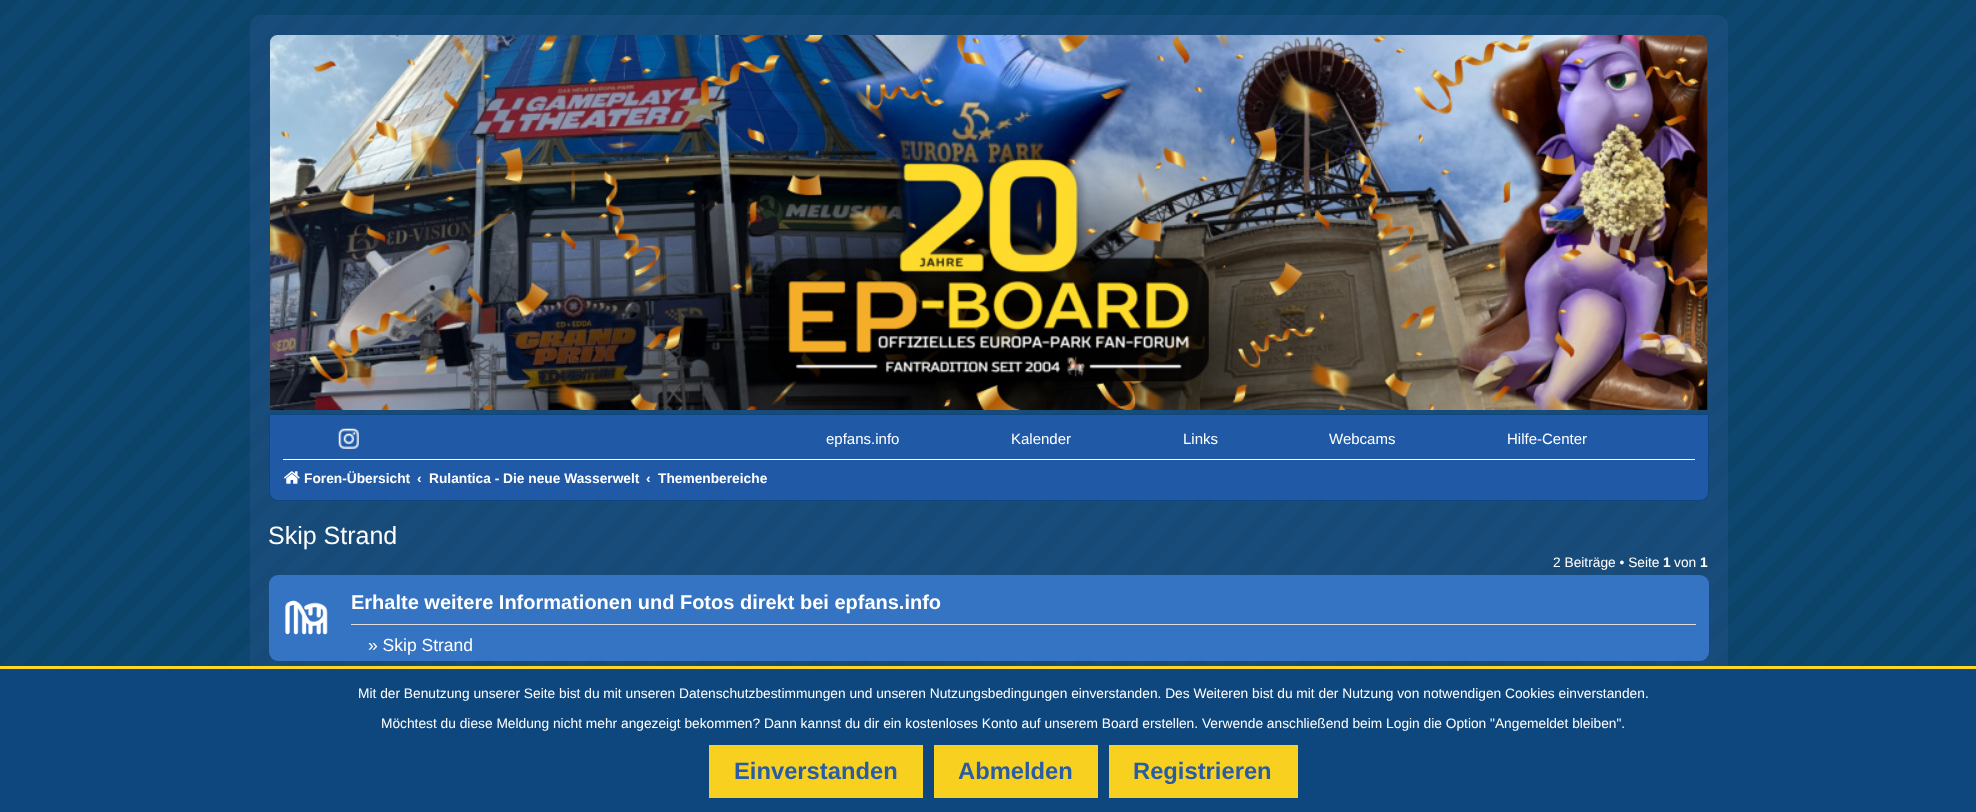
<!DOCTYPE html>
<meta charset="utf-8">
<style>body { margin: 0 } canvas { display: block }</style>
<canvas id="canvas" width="1976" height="812"></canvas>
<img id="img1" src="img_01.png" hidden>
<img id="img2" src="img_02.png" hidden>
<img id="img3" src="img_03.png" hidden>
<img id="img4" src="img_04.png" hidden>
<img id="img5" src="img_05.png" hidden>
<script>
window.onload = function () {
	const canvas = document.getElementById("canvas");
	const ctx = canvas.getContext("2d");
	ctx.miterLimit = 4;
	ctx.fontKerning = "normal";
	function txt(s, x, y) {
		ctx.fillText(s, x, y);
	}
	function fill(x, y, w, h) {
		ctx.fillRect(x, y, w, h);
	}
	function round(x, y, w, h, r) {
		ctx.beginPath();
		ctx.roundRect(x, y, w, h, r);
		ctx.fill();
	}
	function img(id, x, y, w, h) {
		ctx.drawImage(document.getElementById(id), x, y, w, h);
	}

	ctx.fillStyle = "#FFFFFF";
	fill(0, 0, 1976, 812);
	img("img1", 0, 0, 1976, 666);
	ctx.fillStyle = "rgba(48, 89, 146, 0.34)";
	round(250, 15, 1478, 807, 10);
	img("img2", 270, 35, 1438, 375);
	ctx.fillStyle = "#2059A6";
	ctx.beginPath();
	ctx.roundRect(269.5, 414.5, 1439, 86, [0, 0, 8.5, 8.5]);
	ctx.fill();
	ctx.strokeStyle = "#0D477D";
	ctx.stroke();
	img("img3", 338, 428, 21, 21);
	ctx.fillStyle = "#FFFFFF";
	fill(283, 459, 1412, 1);
	img("img4", 284, 471, 16, 13);
	ctx.fillStyle = "#3573C3";
	round(269, 575, 1440, 86, 9);
	img("img5", 285, 600, 43, 35);
	ctx.fillStyle = "#DEDEDE";
	fill(351, 624, 1345, 1);
	ctx.fillStyle = "#0D477D";
	fill(0, 669, 1976, 143);
	ctx.fillStyle = "#FED729";
	fill(0, 666, 1976, 3);
	ctx.fillStyle = "#F8D01F";
	fill(709, 745, 214, 53);
	fill(934, 745, 164, 53);
	fill(1109, 745, 189, 53);
	ctx.font = "15px Liberation Sans";
	ctx.fillStyle = "#FFFFFF";
	txt("epfans.info", 826, 444);
	txt("Kalender", 1011, 444);
	txt("Links", 1183, 444);
	txt("Webcams", 1329, 444);
	txt("Hilfe-Center", 1507, 444);
	ctx.save();
	ctx.beginPath();
	ctx.rect(283, 464, 127, 30);
	ctx.clip();
	ctx.font = "bold 13.75px Liberation Sans";
	txt("Foren-Übersicht", 304, 483);
	ctx.restore();
	ctx.font = "bold 13.75px Liberation Sans";
	txt("‹", 417, 483);
	txt("Rulantica - Die neue Wasserwelt", 429, 483);
	txt("‹", 646, 483);
	txt("Themenbereiche", 658, 483);
	ctx.font = "25px Liberation Sans";
	txt("Skip Strand", 268, 544);
	ctx.font = "13.75px Liberation Sans";
	txt("2 Beiträge • Seite", 1553, 567);
	ctx.font = "bold 13.75px Liberation Sans";
	txt("1", 1663, 567);
	ctx.font = "13.75px Liberation Sans";
	txt("von", 1674, 567);
	ctx.font = "bold 13.75px Liberation Sans";
	txt("1", 1700, 567);
	ctx.font = "bold 20px Liberation Sans";
	txt("Erhalte weitere Informationen und Fotos direkt bei epfans.info", 351, 609);
	ctx.font = "17.5px Liberation Sans";
	txt("» Skip Strand", 368, 651);
	ctx.font = "13.75px Liberation Sans";
	txt("Mit der Benutzung unserer Seite bist du mit unseren Datenschutzbestimmungen und unseren Nutzungsbedingungen einverstanden. Des Weiteren bist du mit der Nutzung von notwendigen Cookies einverstanden.", 358, 698);
	txt("Möchtest du diese Meldung nicht mehr angezeigt bekommen? Dann kannst du dir ein kostenloses Konto auf unserem Board erstellen. Verwende anschließend beim Login die Option \"Angemeldet bleiben\".", 381, 728);
	ctx.font = "bold 23.75px Liberation Sans";
	ctx.fillStyle = "#285DA5";
	txt("Einverstanden", 734, 779);
	txt("Abmelden", 958, 779);
	txt("Registrieren", 1133, 779);
};
</script>
